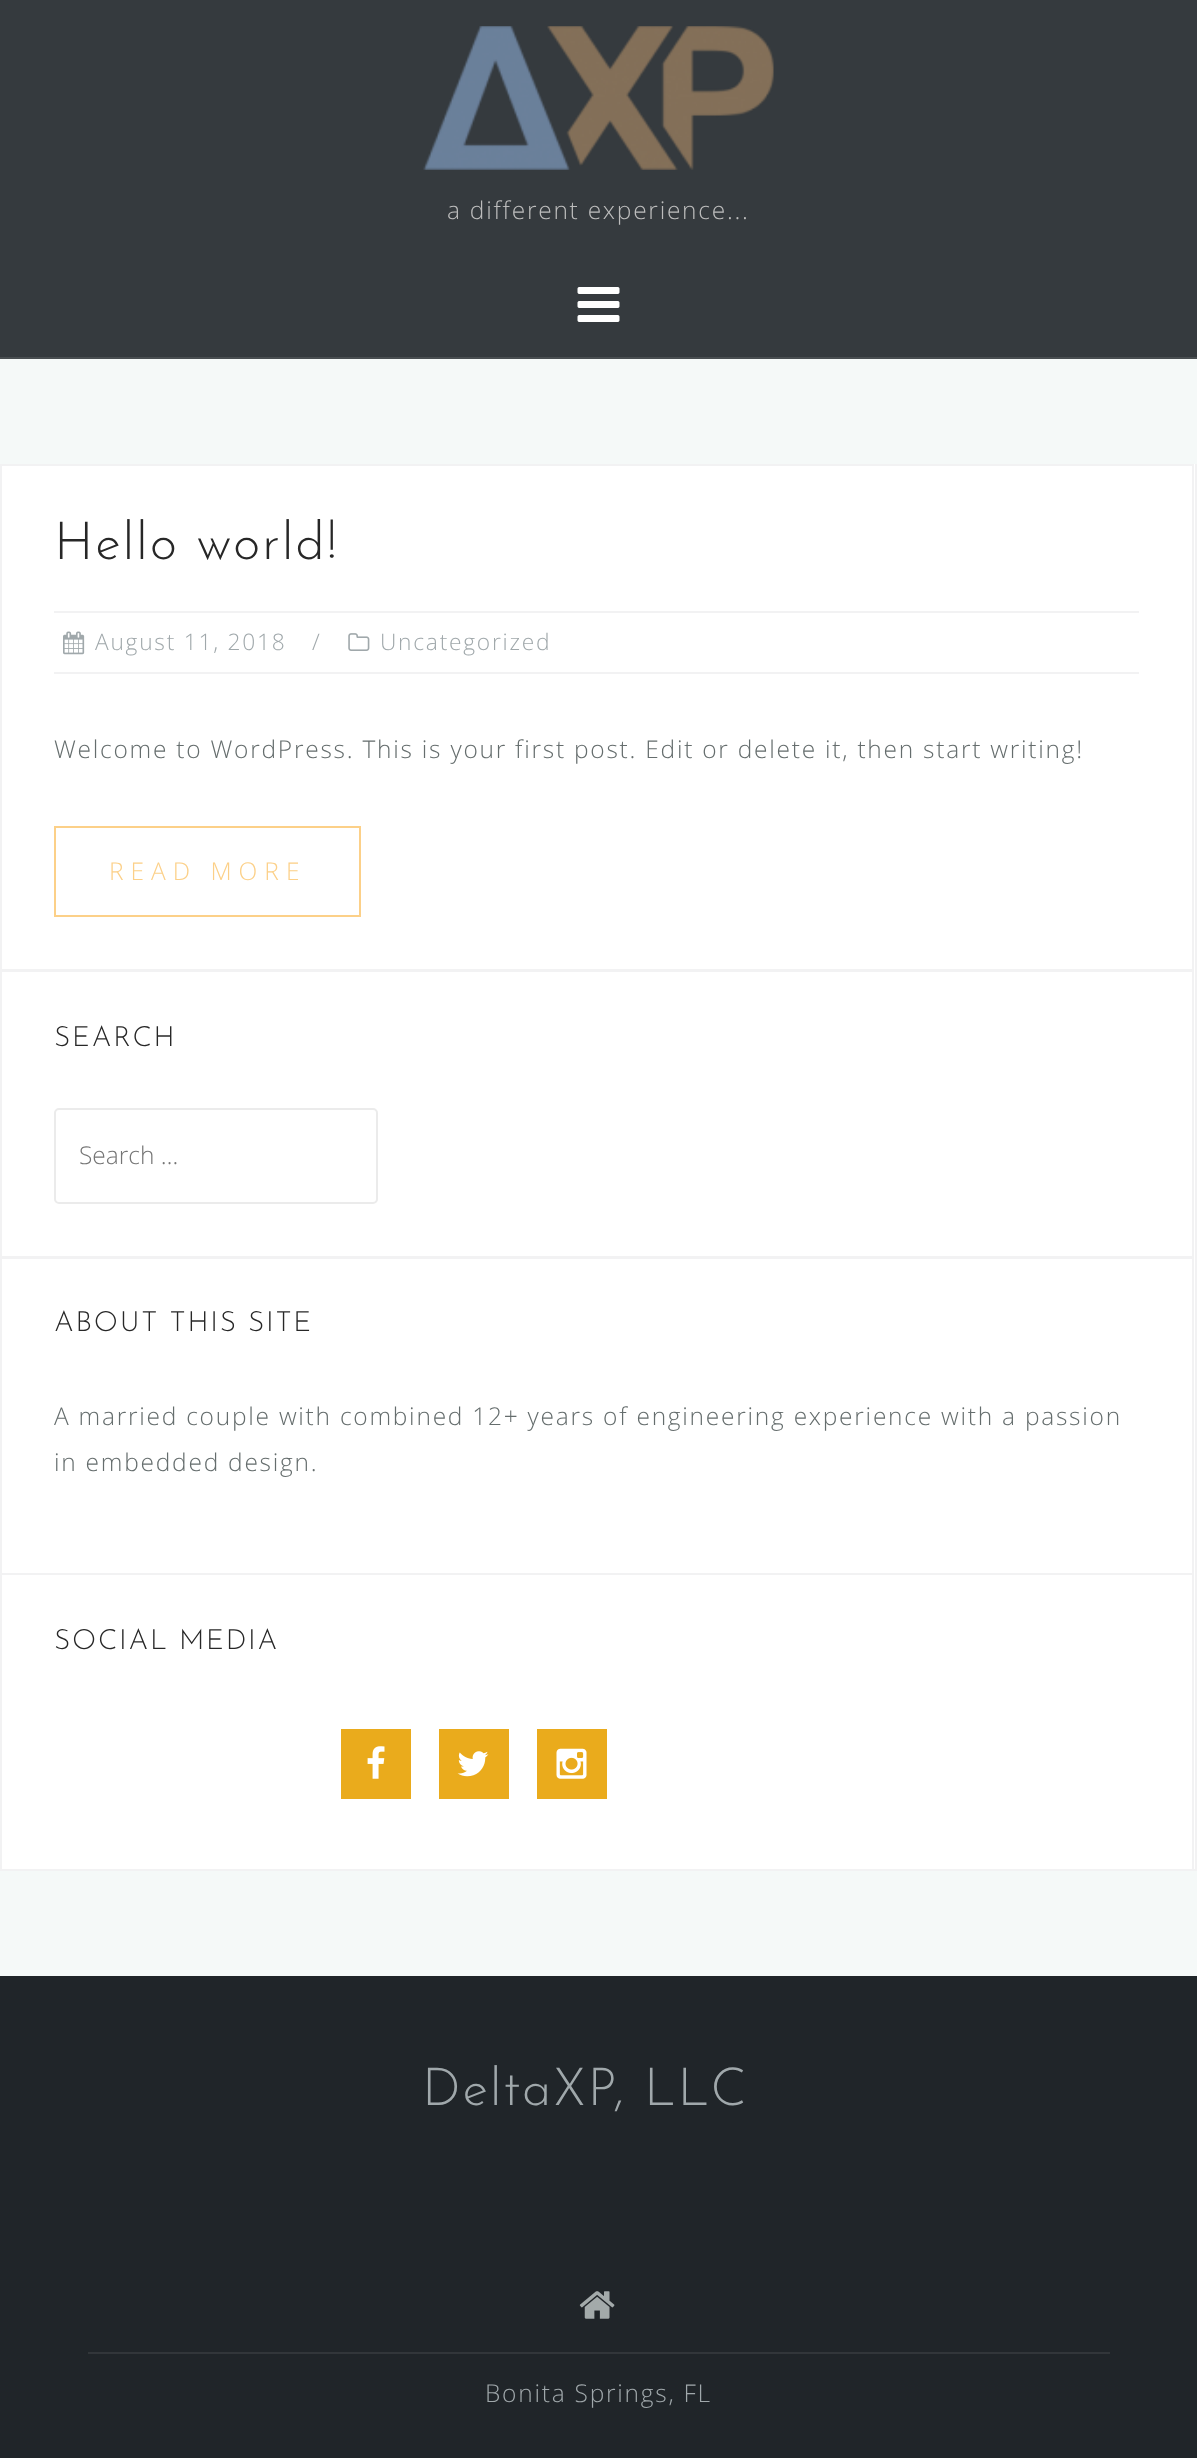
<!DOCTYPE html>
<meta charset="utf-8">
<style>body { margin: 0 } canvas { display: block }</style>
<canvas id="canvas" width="1197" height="2458"></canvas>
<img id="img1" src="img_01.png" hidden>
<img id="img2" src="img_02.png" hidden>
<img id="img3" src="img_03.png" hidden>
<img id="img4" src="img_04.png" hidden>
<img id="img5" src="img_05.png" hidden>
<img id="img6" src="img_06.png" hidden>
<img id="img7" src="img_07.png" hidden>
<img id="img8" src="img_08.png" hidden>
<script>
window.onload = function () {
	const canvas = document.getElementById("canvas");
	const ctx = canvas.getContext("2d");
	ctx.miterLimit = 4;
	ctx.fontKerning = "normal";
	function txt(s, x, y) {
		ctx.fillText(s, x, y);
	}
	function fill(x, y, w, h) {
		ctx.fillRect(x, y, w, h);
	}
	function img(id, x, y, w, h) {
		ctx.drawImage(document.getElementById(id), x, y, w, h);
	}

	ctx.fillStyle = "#F5F9F8";
	fill(0, 0, 1197, 2458);
	ctx.fillStyle = "#353A3E";
	fill(0, 0, 1197, 357);
	ctx.fillStyle = "#494E51";
	fill(0, 357, 1197, 2);
	img("img1", 423, 26, 351, 144);
	img("img2", 577, 287, 43, 35);
	ctx.fillStyle = "#FFFFFF";
	fill(1194, 464, 1, 1405);
	ctx.fillStyle = "#F2F2F3";
	fill(1195, 464, 2, 1407);
	fill(1194, 1869, 3, 2);
	ctx.fillStyle = "#FFFFFF";
	ctx.beginPath();
	ctx.rect(1, 465, 1192, 505);
	ctx.fill();
	ctx.strokeStyle = "#F2F2F3";
	ctx.lineWidth = 2;
	ctx.stroke();
	ctx.fillStyle = "#F2F2F3";
	fill(54, 611, 1085, 2);
	fill(54, 672, 1085, 2);
	img("img3", 63, 631, 22, 24);
	img("img4", 348, 633, 22, 18);
	ctx.strokeStyle = "#FCD088";
	ctx.strokeRect(55, 827, 305, 89);
	ctx.fillStyle = "#FFFFFF";
	ctx.beginPath();
	ctx.rect(1, 971, 1192, 286);
	ctx.fill();
	ctx.strokeStyle = "#F2F2F3";
	ctx.stroke();
	ctx.beginPath();
	ctx.roundRect(55, 1109, 322, 94, 4);
	ctx.strokeStyle = "#EBEBEB";
	ctx.stroke();
	ctx.beginPath();
	ctx.rect(1, 1258, 1192, 316);
	ctx.fill();
	ctx.strokeStyle = "#F2F2F3";
	ctx.stroke();
	ctx.beginPath();
	ctx.rect(1, 1574, 1192, 296);
	ctx.fill();
	ctx.stroke();
	ctx.fillStyle = "#EAAB1C";
	fill(341, 1729, 70, 70);
	img("img5", 367, 1746, 18, 33);
	fill(439, 1729, 70, 70);
	img("img6", 457, 1751, 32, 26);
	fill(537, 1729, 70, 70);
	img("img7", 556, 1748, 31, 31);
	ctx.fillStyle = "#202529";
	fill(0, 1976, 1197, 482);
	img("img8", 579, 2291, 36, 28);
	ctx.fillStyle = "#32363A";
	fill(88, 2352, 1022, 2);
	ctx.letterSpacing = "1.75px";
	ctx.font = "300 24.5px Open Sans";
	ctx.fillStyle = "#BDBDBD";
	txt("a different experience...", 447, 219);
	ctx.font = "100 52.5px Josefin Sans";
	ctx.fillStyle = "#272727";
	txt("Hello world!", 54, 559);
	ctx.font = "300 22.75px Open Sans";
	ctx.fillStyle = "#A0A8AB";
	txt("August 11, 2018", 95, 650);
	txt("/", 312, 650);
	txt("Uncategorized", 380, 650);
	ctx.font = "300 24.5px Open Sans";
	ctx.fillStyle = "#656D6D";
	txt("Welcome to WordPress. This is your first post. Edit or delete it, then start writing!", 54, 758);
	ctx.letterSpacing = "7px";
	ctx.fillStyle = "#FCD088";
	txt("READ MORE", 109, 880);
	ctx.letterSpacing = "1.75px";
	ctx.font = "100 28px Josefin Sans";
	ctx.fillStyle = "#272727";
	txt("SEARCH", 54, 1046);
	ctx.letterSpacing = "0px";
	ctx.font = "300 24.5px Open Sans";
	ctx.fillStyle = "#757575";
	txt("Search …", 79, 1164);
	ctx.letterSpacing = "1.75px";
	ctx.font = "100 28px Josefin Sans";
	ctx.fillStyle = "#272727";
	txt("ABOUT THIS SITE", 54, 1331);
	ctx.font = "300 24.5px Open Sans";
	ctx.fillStyle = "#656D6D";
	txt("A married couple with combined 12+ years of engineering experience with a passion", 54, 1425);
	txt("in embedded design.", 54, 1471);
	ctx.font = "100 28px Josefin Sans";
	ctx.fillStyle = "#272727";
	txt("SOCIAL MEDIA", 54, 1649);
	ctx.font = "100 52.5px Josefin Sans";
	ctx.fillStyle = "#A0A8AB";
	txt("DeltaXP, LLC", 422, 2105);
	ctx.font = "300 24.5px Open Sans";
	txt("Bonita Springs, FL", 485, 2402);
};
</script>
